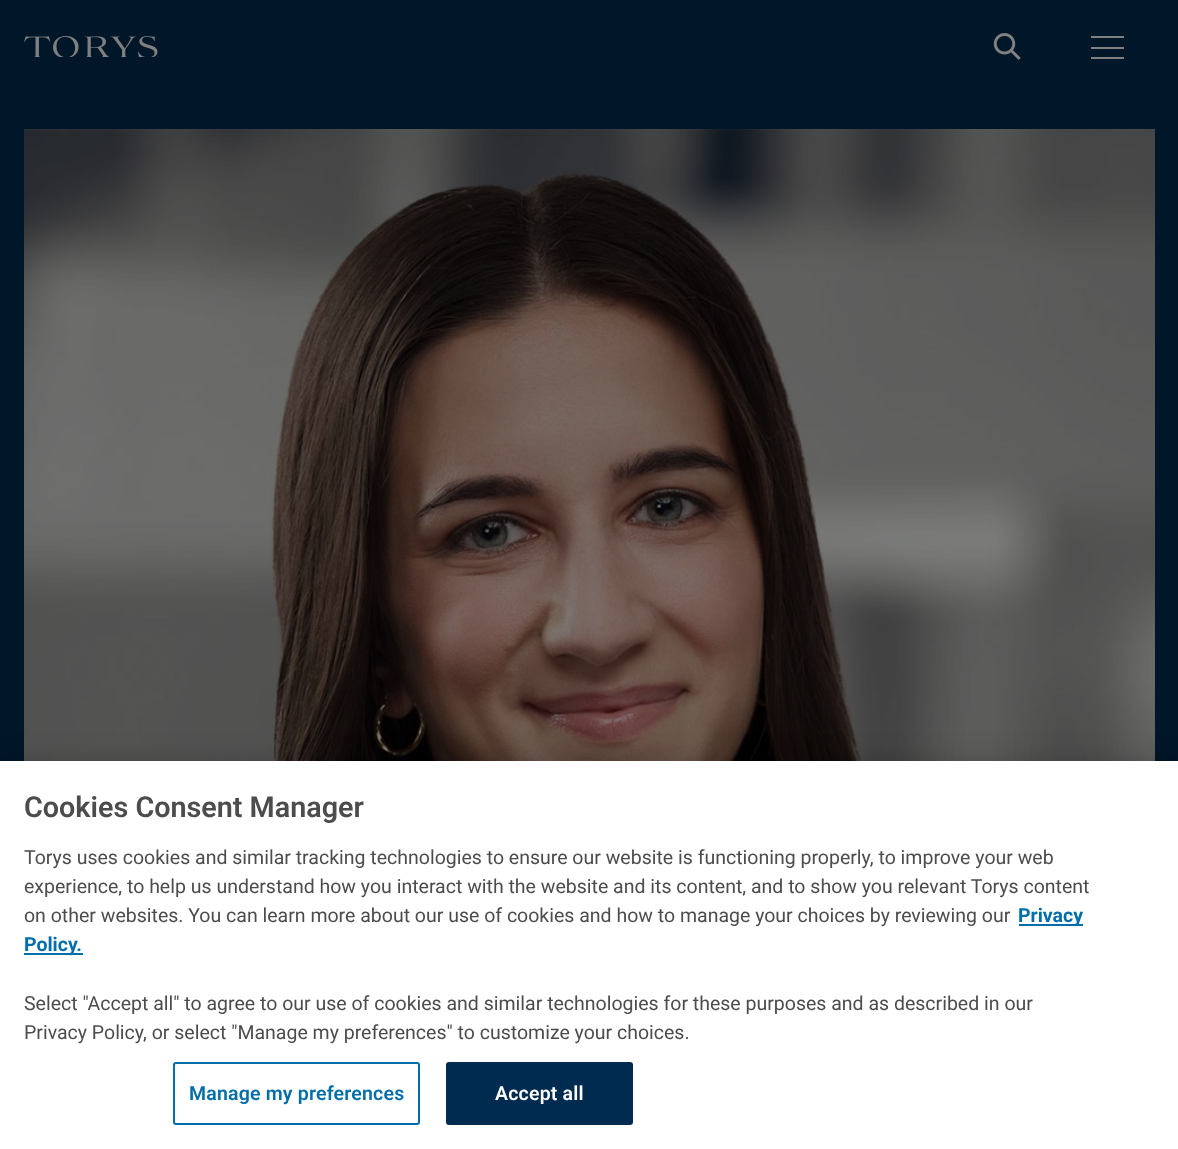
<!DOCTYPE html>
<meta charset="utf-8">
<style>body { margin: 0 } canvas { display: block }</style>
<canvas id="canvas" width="1178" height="1149"></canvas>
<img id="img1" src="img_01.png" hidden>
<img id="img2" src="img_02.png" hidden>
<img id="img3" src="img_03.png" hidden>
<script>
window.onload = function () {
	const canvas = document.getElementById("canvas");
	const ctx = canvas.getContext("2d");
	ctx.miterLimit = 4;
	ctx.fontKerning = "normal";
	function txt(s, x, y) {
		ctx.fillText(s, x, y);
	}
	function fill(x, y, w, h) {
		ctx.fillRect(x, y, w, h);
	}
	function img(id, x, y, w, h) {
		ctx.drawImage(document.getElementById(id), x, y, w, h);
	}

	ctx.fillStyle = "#001629";
	fill(0, 0, 1178, 1149);
	img("img1", 24, 36, 134, 21);
	img("img2", 993, 33, 28, 27);
	ctx.fillStyle = "#808080";
	fill(1091, 36, 33, 2);
	fill(1091, 47, 33, 2);
	fill(1091, 57, 33, 2);
	img("img3", 24, 129, 1131, 632);
	ctx.fillStyle = "rgba(0, 0, 0, 0.2)";
	ctx.filter = "blur(13.5px)";
	ctx.beginPath();
	ctx.rect(0, 761, 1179, 388);
	ctx.fill();
	ctx.filter = "none";
	ctx.fillStyle = "#FFFFFF";
	fill(0, 761, 1178, 388);
	ctx.fillStyle = "#006EAA";
	fill(1019, 924, 64, 2);
	fill(24, 953, 59, 2);
	ctx.beginPath();
	ctx.roundRect(174, 1063, 245, 61, 2);
	ctx.strokeStyle = "#006EAA";
	ctx.lineWidth = 2;
	ctx.stroke();
	ctx.fillStyle = "#002B51";
	ctx.beginPath();
	ctx.roundRect(447, 1063, 185, 61, 2);
	ctx.fill();
	ctx.strokeStyle = "#002B51";
	ctx.stroke();
	ctx.font = "600 28.75px Roboto";
	ctx.fillStyle = "#4C4C4C";
	txt("Cookies Consent Manager", 24, 817);
	ctx.font = "19.5px Roboto";
	txt("Torys uses cookies and similar tracking technologies to ensure our website is functioning properly, to improve your web", 24, 864);
	txt("experience, to help us understand how you interact with the website and its content, and to show you relevant Torys content", 24, 893);
	txt("on other websites. You can learn more about our use of cookies and how to manage your choices by reviewing our", 24, 922);
	ctx.font = "bold 19.5px Roboto";
	ctx.fillStyle = "#006EAA";
	txt("Privacy", 1018, 922);
	txt("Policy.", 24, 951);
	ctx.font = "19.5px Roboto";
	ctx.fillStyle = "#4C4C4C";
	txt("Select \"Accept all\" to agree to our use of cookies and similar technologies for these purposes and as described in our", 24, 1010);
	txt("Privacy Policy, or select \"Manage my preferences\" to customize your choices.", 24, 1039);
	ctx.letterSpacing = "0.2px";
	ctx.font = "600 19.5px Roboto";
	ctx.fillStyle = "#006EAA";
	txt("Manage my preferences", 189, 1100);
	ctx.fillStyle = "#FFFFFF";
	txt("Accept all", 495, 1100);
};
</script>
